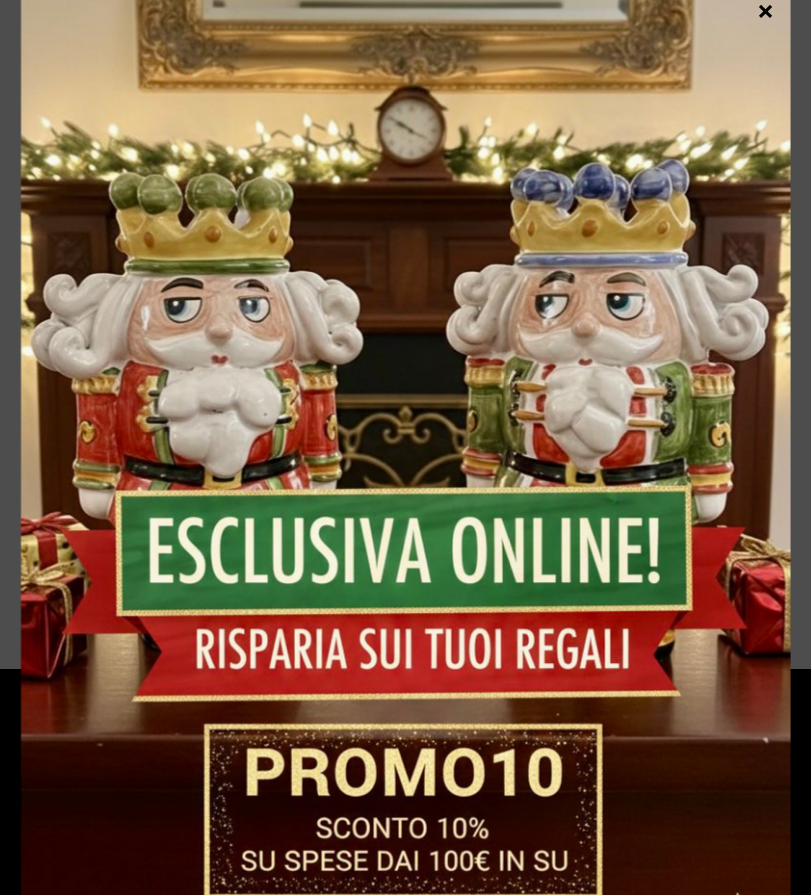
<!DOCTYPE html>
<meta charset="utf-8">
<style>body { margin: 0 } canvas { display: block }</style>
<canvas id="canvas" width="811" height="895"></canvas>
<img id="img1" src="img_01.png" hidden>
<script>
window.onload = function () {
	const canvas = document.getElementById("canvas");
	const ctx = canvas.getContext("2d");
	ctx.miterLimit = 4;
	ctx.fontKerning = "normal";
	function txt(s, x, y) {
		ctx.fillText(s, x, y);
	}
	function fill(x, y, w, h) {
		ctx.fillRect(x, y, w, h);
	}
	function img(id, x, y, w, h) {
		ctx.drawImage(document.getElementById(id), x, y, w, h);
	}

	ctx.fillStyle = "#4D4D4D";
	fill(0, 0, 811, 895);
	ctx.fillStyle = "#000000";
	fill(0, 669, 811, 226);
	img("img1", 20, 0, 771, 895);
	ctx.font = "bold 30px Open Sans";
	txt("×", 757, 22);
};
</script>
